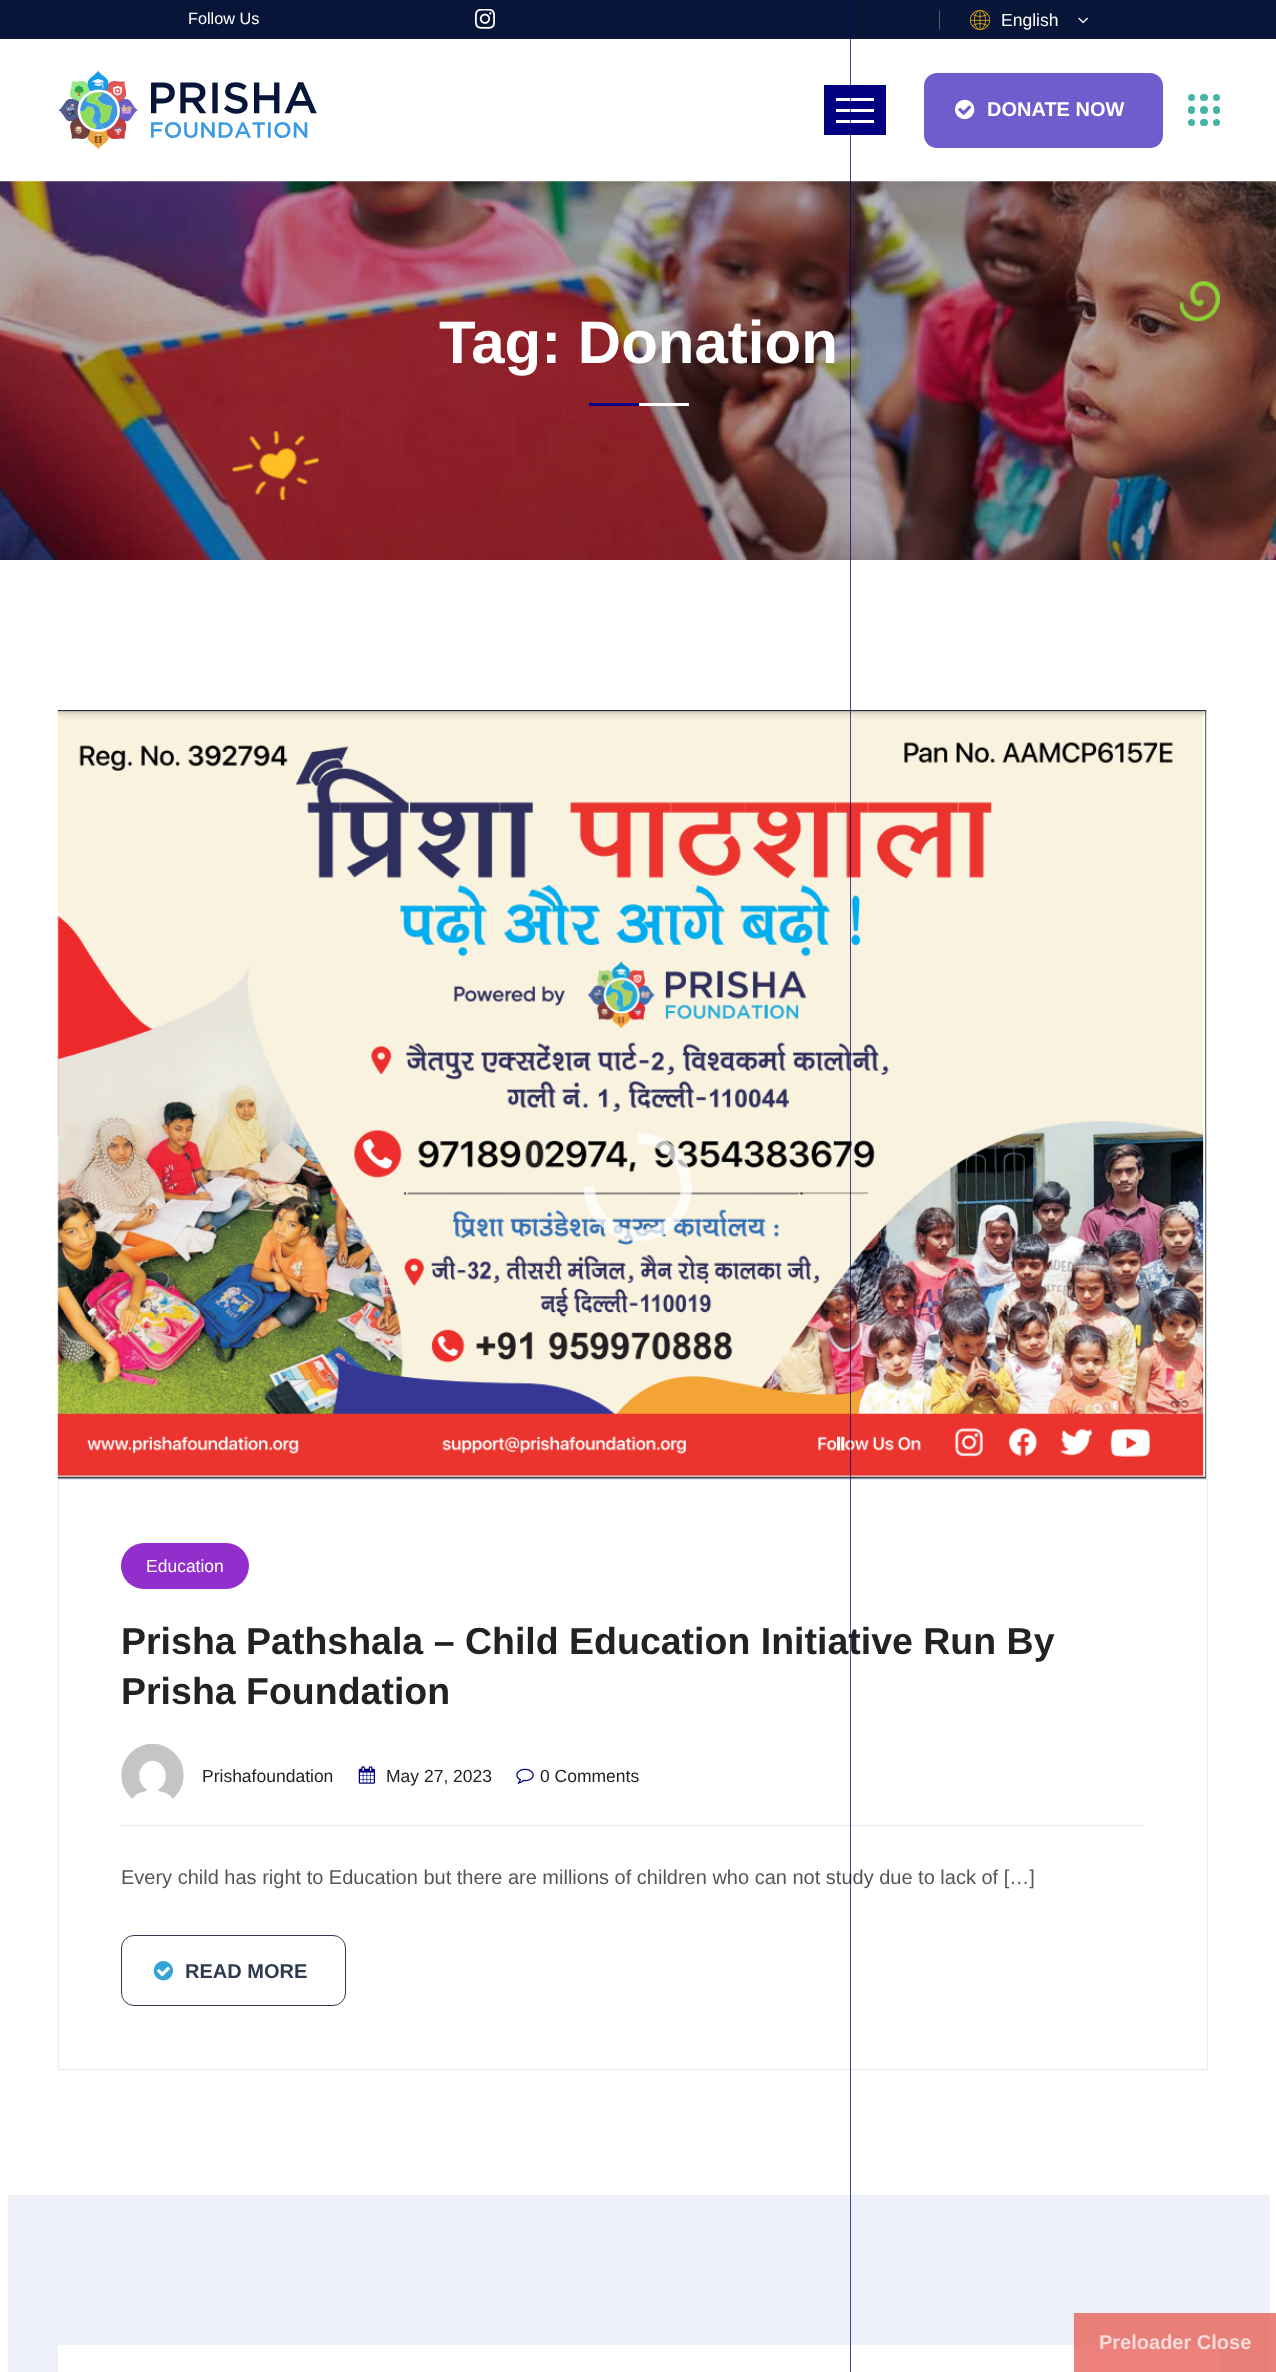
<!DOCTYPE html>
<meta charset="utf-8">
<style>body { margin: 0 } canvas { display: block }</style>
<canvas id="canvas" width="1276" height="2372"></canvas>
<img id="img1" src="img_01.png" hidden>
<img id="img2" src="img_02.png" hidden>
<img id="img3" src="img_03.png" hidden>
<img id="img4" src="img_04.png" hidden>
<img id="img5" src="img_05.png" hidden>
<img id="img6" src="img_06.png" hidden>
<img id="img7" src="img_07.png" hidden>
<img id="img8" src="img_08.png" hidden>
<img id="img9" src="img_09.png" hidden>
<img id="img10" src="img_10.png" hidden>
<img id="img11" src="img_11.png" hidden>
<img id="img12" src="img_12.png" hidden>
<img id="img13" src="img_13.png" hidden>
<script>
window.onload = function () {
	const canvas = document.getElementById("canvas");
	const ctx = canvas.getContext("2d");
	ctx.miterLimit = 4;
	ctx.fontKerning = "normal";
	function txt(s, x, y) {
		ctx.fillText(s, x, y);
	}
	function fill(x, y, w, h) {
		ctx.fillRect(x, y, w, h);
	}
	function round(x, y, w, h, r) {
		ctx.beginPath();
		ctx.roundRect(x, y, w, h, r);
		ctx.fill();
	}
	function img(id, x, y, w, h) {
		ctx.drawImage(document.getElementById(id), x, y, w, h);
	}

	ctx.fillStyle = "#FFFFFF";
	fill(0, 0, 1276, 2372);
	ctx.fillStyle = "#EC827B";
	fill(1270, 2313, 6, 59);
	ctx.fillStyle = "#061538";
	fill(0, 0, 1276, 39);
	img("img1", 475, 9, 20, 20);
	ctx.fillStyle = "#515B74";
	fill(939, 10, 1, 20);
	img("img2", 970, 10, 20, 20);
	img("img3", 1078, 17, 10, 7);
	img("img4", 58, 70, 259, 80);
	ctx.fillStyle = "#000080";
	fill(824, 85, 62, 50);
	ctx.fillStyle = "#FFFFFF";
	fill(836, 98, 38, 3);
	fill(836, 109, 38, 3);
	fill(836, 120, 38, 3);
	ctx.fillStyle = "#6E5DCC";
	round(924, 73, 239, 75, 13);
	img("img5", 955, 99, 20, 21);
	ctx.fillStyle = "#46B3A8";
	ctx.beginPath();
	ctx.arc(1191.5, 97.5, 3.5, 0, Math.PI * 2);
	ctx.fill();
	round(1200, 94, 8, 7, 3.5);
	ctx.beginPath();
	ctx.arc(1216.5, 97.5, 3.5, 0, Math.PI * 2);
	ctx.fill();
	round(1188, 106, 7, 8, 3.5);
	ctx.beginPath();
	ctx.arc(1204, 110, 4, 0, Math.PI * 2);
	ctx.fill();
	round(1213, 106, 7, 8, 3.5);
	ctx.beginPath();
	ctx.arc(1191.5, 122.5, 3.5, 0, Math.PI * 2);
	ctx.fill();
	round(1200, 119, 8, 7, 3.5);
	ctx.beginPath();
	ctx.arc(1216.5, 122.5, 3.5, 0, Math.PI * 2);
	ctx.fill();
	img("img6", 0, 181, 1276, 379);
	img("img7", 1180, 281, 40, 41);
	ctx.fillStyle = "#FFFFFF";
	fill(639, 403, 50, 3);
	ctx.fillStyle = "#000080";
	fill(589, 403, 50, 3);
	img("img8", 231, 431, 88, 70);
	img("img9", 57, 710, 1150, 769);
	ctx.strokeStyle = "#E3E9F4";
	ctx.strokeRect(58.5, 1479.5, 1149, 590);
	ctx.fillStyle = "#922ECB";
	round(121, 1543, 128, 46, 23);
	ctx.fillStyle = "#E3E9F4";
	fill(121, 1825, 1023, 1);
	img("img10", 121, 1744, 63, 55);
	img("img11", 358, 1766, 17, 18);
	img("img12", 516, 1768, 18, 16);
	ctx.beginPath();
	ctx.roundRect(121.5, 1935.5, 224, 70, 12.5);
	ctx.strokeStyle = "#2F3A51";
	ctx.stroke();
	img("img13", 153, 1961, 20, 20);
	ctx.fillStyle = "#EEF1F7";
	fill(8, 2195, 1262, 177);
	ctx.fillStyle = "#E87F78";
	fill(1074, 2313, 196, 59);
	ctx.fillStyle = "#FFFFFF";
	fill(58, 2345, 1016, 27);
	ctx.fillStyle = "#EC827B";
	fill(1074, 2345, 146, 27);
	ctx.beginPath();
	ctx.moveTo(638, 1138.5);
	ctx.bezierCurveTo(665, 1138.5, 686.5, 1160, 686.5, 1187);
	ctx.bezierCurveTo(686.5, 1213.5, 665, 1235.5, 638, 1235.5);
	ctx.bezierCurveTo(611.5, 1235.5, 589.5, 1213.5, 589.5, 1187);
	ctx.strokeStyle = "rgba(255, 255, 255, 0.72)";
	ctx.lineWidth = 11.1;
	ctx.stroke();
	ctx.font = "16.25px Liberation Sans";
	ctx.fillStyle = "#FFFFFF";
	txt("Follow Us", 188, 24);
	ctx.font = "17.5px Liberation Sans";
	txt("English", 1001, 26);
	ctx.font = "bold 20px Liberation Sans";
	txt("DONATE NOW", 987, 116);
	ctx.font = "bold 60px Liberation Sans";
	txt("Tag: Donation", 439, 363);
	ctx.font = "17.5px Liberation Sans";
	txt("Education", 146, 1572);
	ctx.font = "bold 37.5px Liberation Sans";
	ctx.fillStyle = "#222222";
	txt("Prisha Pathshala – Child Education Initiative Run By", 121, 1654);
	txt("Prisha Foundation", 121, 1704);
	ctx.font = "17.5px Liberation Sans";
	txt("Prishafoundation", 202, 1782);
	txt("May 27, 2023", 386, 1782);
	txt("0 Comments", 540, 1782);
	ctx.font = "20px Liberation Sans";
	ctx.fillStyle = "#555555";
	txt("Every child has right to Education but there are millions of children who can not study due to lack of […]", 121, 1884);
	ctx.font = "bold 20px Liberation Sans";
	ctx.fillStyle = "#2F3A51";
	txt("READ MORE", 185, 1978);
	ctx.fillStyle = "rgba(0, 0, 128, 0.72)";
	fill(850, 0, 1, 2372);
	ctx.fillStyle = "#F9DBD9";
	txt("Preloader Close", 1099, 2349);
};
</script>
